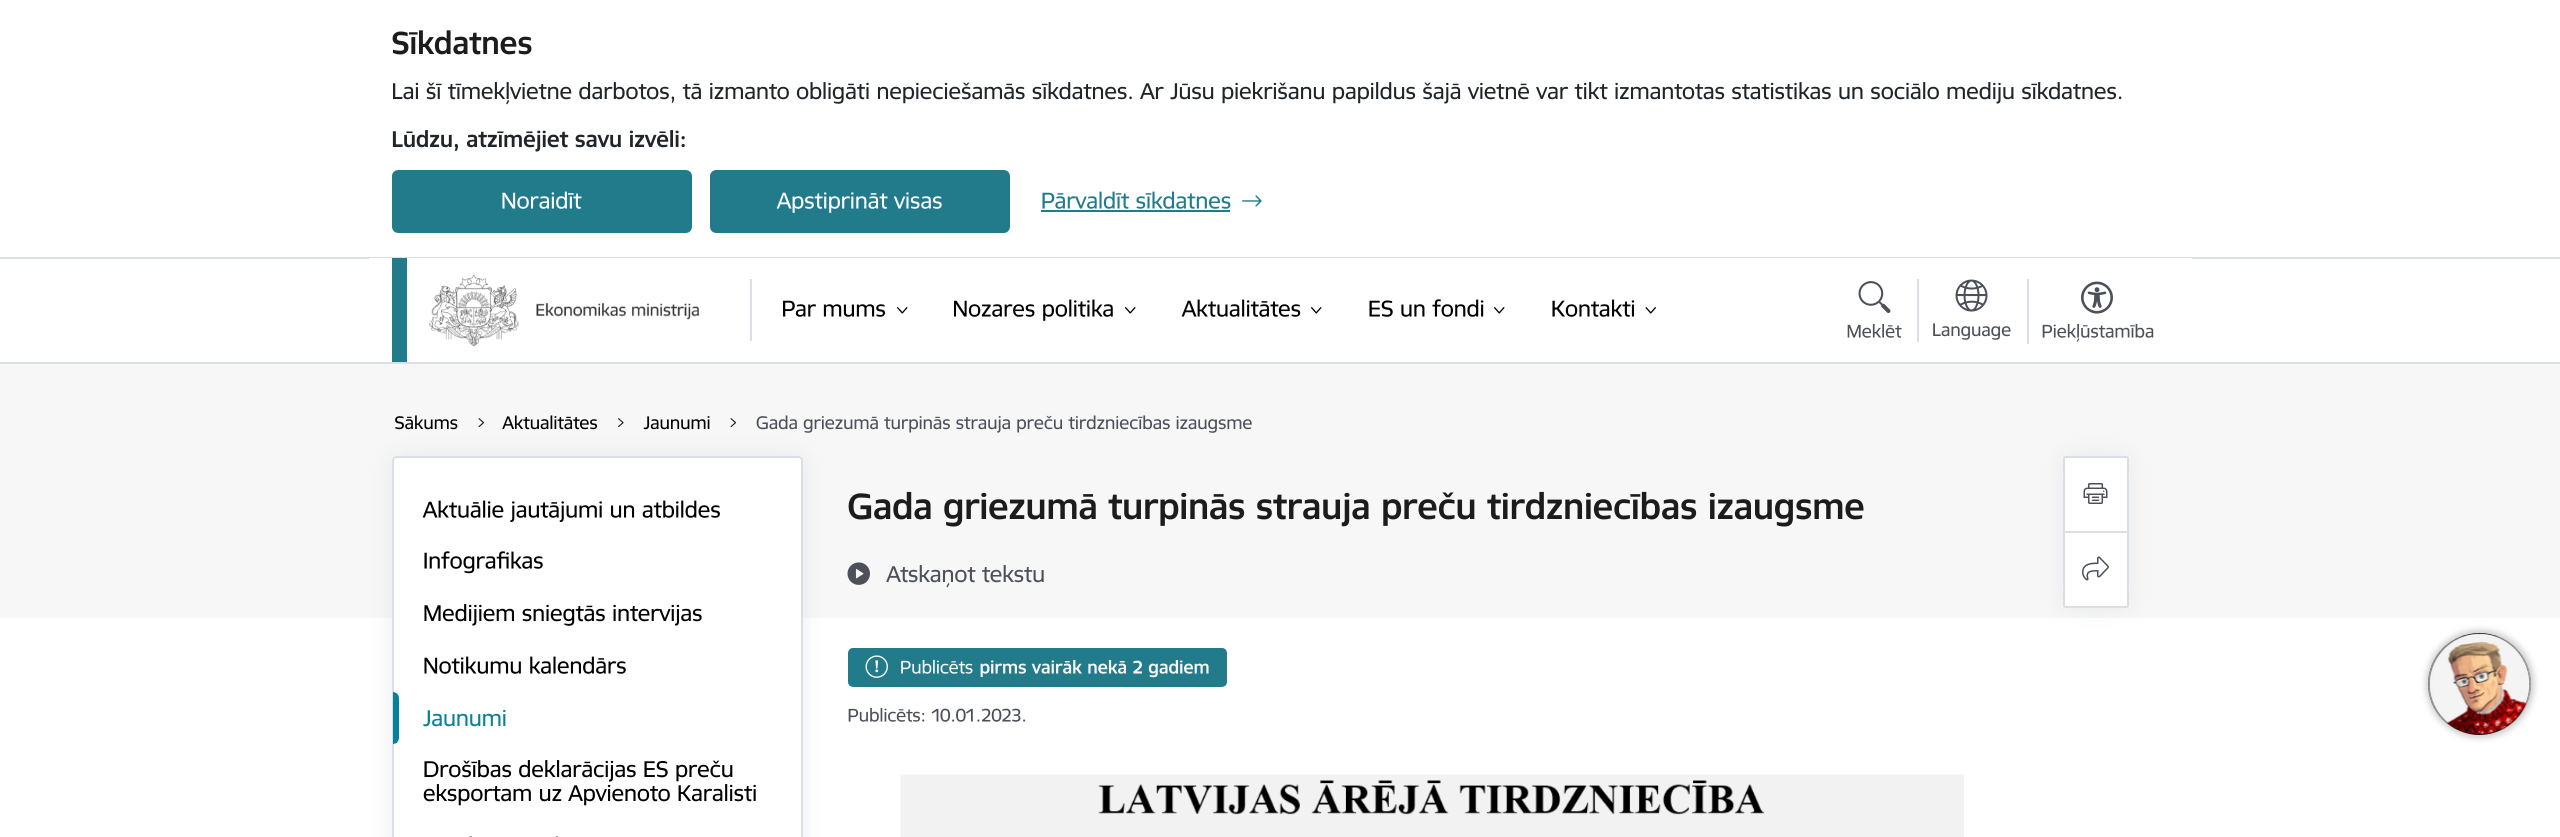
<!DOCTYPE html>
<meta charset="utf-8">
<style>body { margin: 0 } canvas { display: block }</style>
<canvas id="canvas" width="2560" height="837"></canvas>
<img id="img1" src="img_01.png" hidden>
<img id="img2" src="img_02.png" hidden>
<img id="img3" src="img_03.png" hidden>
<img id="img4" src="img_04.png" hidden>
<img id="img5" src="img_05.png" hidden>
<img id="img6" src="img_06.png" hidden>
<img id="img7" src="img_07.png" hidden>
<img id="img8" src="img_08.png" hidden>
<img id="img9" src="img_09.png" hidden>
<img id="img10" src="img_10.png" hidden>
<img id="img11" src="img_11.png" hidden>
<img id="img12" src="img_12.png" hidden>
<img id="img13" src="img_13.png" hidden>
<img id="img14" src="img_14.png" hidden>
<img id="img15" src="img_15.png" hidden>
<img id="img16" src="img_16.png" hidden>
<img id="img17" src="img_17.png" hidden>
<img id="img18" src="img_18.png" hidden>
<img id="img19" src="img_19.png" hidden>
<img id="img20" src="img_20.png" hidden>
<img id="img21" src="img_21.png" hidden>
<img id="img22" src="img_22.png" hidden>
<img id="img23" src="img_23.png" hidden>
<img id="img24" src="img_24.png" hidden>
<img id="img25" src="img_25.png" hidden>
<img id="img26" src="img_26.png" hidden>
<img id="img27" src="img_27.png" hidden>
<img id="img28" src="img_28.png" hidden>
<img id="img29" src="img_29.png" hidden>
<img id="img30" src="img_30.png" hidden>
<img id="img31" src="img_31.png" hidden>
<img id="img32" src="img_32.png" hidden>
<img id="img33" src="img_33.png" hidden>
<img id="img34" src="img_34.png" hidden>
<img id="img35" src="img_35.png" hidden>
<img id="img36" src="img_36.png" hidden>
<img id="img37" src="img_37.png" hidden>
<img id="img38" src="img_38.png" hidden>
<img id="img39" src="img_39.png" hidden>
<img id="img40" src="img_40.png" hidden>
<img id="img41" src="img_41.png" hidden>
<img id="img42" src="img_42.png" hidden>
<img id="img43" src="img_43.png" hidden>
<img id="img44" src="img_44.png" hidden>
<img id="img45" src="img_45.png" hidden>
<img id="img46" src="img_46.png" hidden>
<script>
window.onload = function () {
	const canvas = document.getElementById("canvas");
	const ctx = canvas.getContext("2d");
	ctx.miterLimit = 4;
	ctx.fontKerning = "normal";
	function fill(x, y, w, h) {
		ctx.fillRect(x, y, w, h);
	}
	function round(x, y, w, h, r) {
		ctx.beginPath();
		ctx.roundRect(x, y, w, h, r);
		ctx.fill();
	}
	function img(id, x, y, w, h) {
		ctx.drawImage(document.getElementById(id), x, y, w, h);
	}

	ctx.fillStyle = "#FFFFFF";
	fill(0, 0, 2560, 837);
	ctx.fillStyle = "#DBDEE4";
	fill(0, 257, 2560, 2);
	img("img1", 392, 30, 140, 25);
	img("img2", 393, 82, 1729, 23);
	img("img3", 392, 130, 293, 22);
	ctx.fillStyle = "#227B8B";
	ctx.beginPath();
	ctx.roundRect(393, 171, 298, 61, 5);
	ctx.fill();
	ctx.strokeStyle = "#227B8B";
	ctx.lineWidth = 2;
	ctx.stroke();
	img("img4", 502, 191, 80, 18);
	ctx.beginPath();
	ctx.roundRect(711, 171, 298, 61, 5);
	ctx.fill();
	ctx.stroke();
	img("img5", 776, 192, 166, 21);
	img("img6", 1042, 191, 189, 18);
	img("img7", 1242, 195, 20, 12);
	fill(1041, 210, 189, 2);
	ctx.fillStyle = "#DBDEE4";
	fill(0, 362, 2560, 2);
	ctx.fillStyle = "#FFFFFF";
	fill(369, 258, 1823, 1);
	ctx.fillStyle = "#227B8B";
	fill(392, 258, 15, 104);
	img("img8", 429, 274, 271, 73);
	ctx.fillStyle = "#DBDEE4";
	fill(750, 279, 2, 62);
	img("img9", 783, 300, 102, 17);
	img("img10", 897, 307, 11, 7);
	img("img11", 954, 299, 159, 22);
	img("img10", 1125, 307, 11, 7);
	img("img12", 1181, 299, 120, 18);
	img("img10", 1311, 307, 11, 7);
	img("img13", 1369, 299, 115, 18);
	img("img10", 1494, 307, 11, 7);
	img("img14", 1552, 299, 83, 18);
	img("img15", 1645, 307, 11, 7);
	img("img16", 1858, 281, 33, 32);
	img("img17", 1847, 323, 55, 15);
	fill(1917, 279, 2, 63);
	img("img18", 1955, 279, 33, 33);
	img("img19", 1933, 323, 78, 17);
	fill(2027, 279, 2, 65);
	img("img20", 2081, 281, 32, 33);
	img("img21", 2042, 323, 112, 19);
	ctx.fillStyle = "#F7F7F7";
	fill(0, 364, 2560, 254);
	img("img22", 395, 415, 63, 15);
	img("img23", 478, 418, 7, 10);
	img("img24", 502, 415, 96, 15);
	img("img25", 618, 418, 6, 10);
	img("img26", 643, 416, 67, 14);
	img("img23", 730, 418, 7, 10);
	img("img27", 756, 415, 496, 18);
	img("img28", 848, 491, 1016, 36);
	img("img29", 847, 562, 23, 23);
	img("img30", 886, 565, 158, 23);
	ctx.fillStyle = "rgba(216, 218, 221, 0.5)";
	ctx.filter = "blur(11px)";
	ctx.beginPath();
	ctx.roundRect(392, 456, 411, 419, 5);
	ctx.fill();
	ctx.filter = "none";
	ctx.fillStyle = "#FFFFFF";
	ctx.beginPath();
	ctx.roundRect(393, 457, 409, 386, 4);
	ctx.fill();
	ctx.strokeStyle = "#DBDEE4";
	ctx.stroke();
	img("img31", 422, 500, 298, 23);
	img("img32", 424, 551, 119, 23);
	img("img33", 424, 604, 278, 22);
	img("img34", 424, 656, 202, 18);
	ctx.fillStyle = "#05819C";
	ctx.beginPath();
	ctx.roundRect(393, 692, 6, 52, [0, 6, 6, 0]);
	ctx.fill();
	img("img35", 423, 709, 83, 18);
	img("img36", 424, 760, 309, 22);
	img("img37", 423, 784, 333, 22);
	img("img38", 469, 836, 89, 1);
	ctx.fillStyle = "rgba(216, 218, 221, 0.5)";
	ctx.filter = "blur(11px)";
	ctx.beginPath();
	ctx.roundRect(2063, 456, 66, 152, 3);
	ctx.fill();
	ctx.filter = "none";
	ctx.fillStyle = "#FFFFFF";
	ctx.beginPath();
	ctx.roundRect(2064, 457, 64, 150, 2);
	ctx.fill();
	ctx.stroke();
	ctx.fillStyle = "#DBDEE4";
	fill(2064, 531, 63, 2);
	img("img39", 2083, 483, 25, 21);
	img("img40", 2082, 556, 27, 25);
	ctx.fillStyle = "#227B8B";
	round(848, 648, 379, 39, 5);
	img("img41", 865, 655, 23, 23);
	img("img42", 901, 659, 72, 15);
	img("img43", 980, 659, 229, 19);
	img("img44", 848, 707, 178, 15);
	img("img45", 900, 774, 1064, 63);
	ctx.fillStyle = "rgba(0, 0, 0, 0.2)";
	ctx.filter = "blur(3px)";
	ctx.beginPath();
	ctx.roundRect(2426, 630, 108, 108, 54);
	ctx.fill();
	ctx.filter = "none";
	ctx.fillStyle = "#FFFFFF";
	ctx.beginPath();
	ctx.arc(2480, 684, 51, 0, Math.PI * 2);
	ctx.fill();
	img("img46", 2428, 633, 103, 102);
};
</script>
